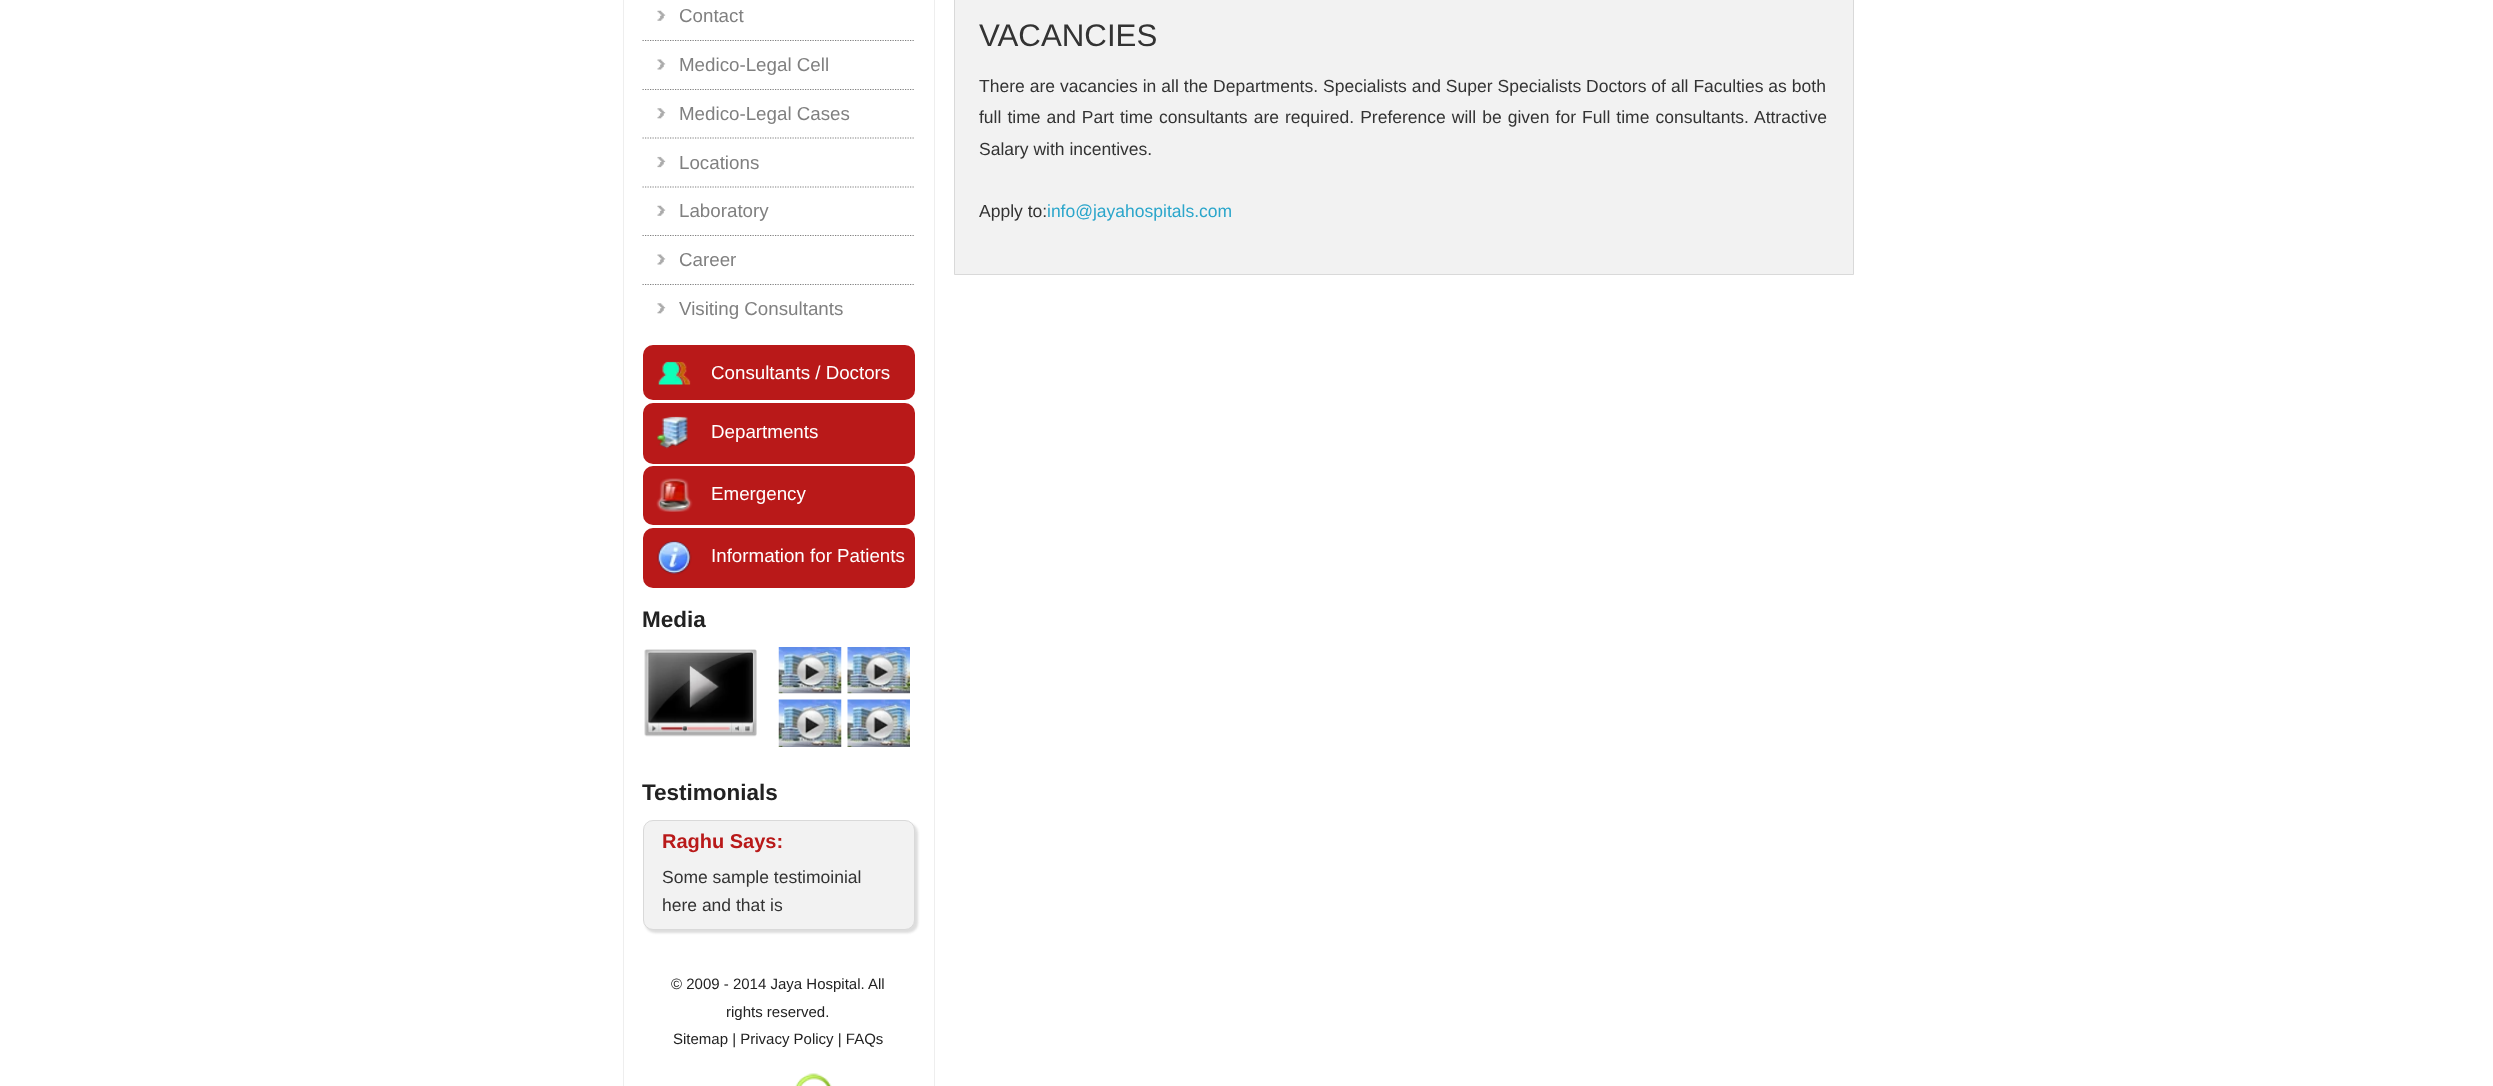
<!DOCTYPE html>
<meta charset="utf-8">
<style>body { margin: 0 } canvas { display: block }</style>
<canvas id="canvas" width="2493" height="1086"></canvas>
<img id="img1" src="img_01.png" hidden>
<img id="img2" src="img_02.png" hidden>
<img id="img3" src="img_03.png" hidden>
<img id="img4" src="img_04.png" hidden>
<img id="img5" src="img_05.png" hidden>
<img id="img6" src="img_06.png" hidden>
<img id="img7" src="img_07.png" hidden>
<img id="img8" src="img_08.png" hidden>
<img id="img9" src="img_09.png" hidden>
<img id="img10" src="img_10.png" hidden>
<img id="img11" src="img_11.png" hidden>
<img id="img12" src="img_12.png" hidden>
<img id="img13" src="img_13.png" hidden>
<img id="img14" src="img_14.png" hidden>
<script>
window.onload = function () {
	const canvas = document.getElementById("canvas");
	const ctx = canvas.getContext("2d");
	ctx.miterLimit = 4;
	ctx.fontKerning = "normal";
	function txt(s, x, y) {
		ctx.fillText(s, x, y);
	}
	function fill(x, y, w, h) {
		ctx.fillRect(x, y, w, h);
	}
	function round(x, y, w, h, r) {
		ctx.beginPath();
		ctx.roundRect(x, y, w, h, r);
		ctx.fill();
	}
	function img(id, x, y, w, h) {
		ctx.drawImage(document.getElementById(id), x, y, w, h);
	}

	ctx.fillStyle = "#FFFFFF";
	fill(0, 0, 2493, 1086);
	ctx.strokeStyle = "#EEEEEE";
	ctx.strokeRect(623.5, -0.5, 311, 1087);
	img("img1", 657, 10, 9, 11);
	img("img2", 657, 59, 9, 11);
	ctx.beginPath();
	ctx.moveTo(642.5, 40.5);
	ctx.lineTo(915, 40.5);
	ctx.strokeStyle = "#808080";
	ctx.lineWidth = 1.2;
	ctx.setLineDash([1.25, 1.25]);
	ctx.stroke();
	img("img3", 657, 108, 9, 11);
	ctx.beginPath();
	ctx.moveTo(642.5, 89.5);
	ctx.lineTo(915, 89.5);
	ctx.stroke();
	img("img4", 657, 156, 9, 12);
	ctx.beginPath();
	ctx.moveTo(642.5, 138);
	ctx.lineTo(915, 138);
	ctx.stroke();
	img("img1", 657, 205, 9, 11);
	ctx.beginPath();
	ctx.moveTo(642.5, 187);
	ctx.lineTo(915, 187);
	ctx.stroke();
	img("img2", 657, 254, 9, 11);
	ctx.beginPath();
	ctx.moveTo(642.5, 235.5);
	ctx.lineTo(915, 235.5);
	ctx.stroke();
	img("img3", 657, 303, 9, 11);
	ctx.beginPath();
	ctx.moveTo(642.5, 284.5);
	ctx.lineTo(915, 284.5);
	ctx.stroke();
	ctx.fillStyle = "#B91919";
	round(643, 345, 272, 55, 10);
	img("img5", 658, 361, 33, 24);
	round(643, 403, 272, 61, 10);
	img("img6", 657, 416, 31, 33);
	round(643, 466, 272, 59, 10);
	img("img7", 656, 478, 37, 34);
	round(643, 528, 272, 60, 10);
	img("img8", 657, 540, 35, 35);
	img("img9", 644, 649, 113, 88);
	img("img10", 778, 647, 64, 47);
	img("img11", 847, 647, 63, 47);
	img("img12", 778, 699, 64, 48);
	img("img13", 847, 699, 63, 48);
	ctx.fillStyle = "#DDDDDD";
	ctx.filter = "blur(1px)";
	ctx.beginPath();
	ctx.roundRect(645, 823, 273, 110, 10);
	ctx.fill();
	ctx.filter = "none";
	ctx.fillStyle = "#F2F2F2";
	ctx.beginPath();
	ctx.roundRect(643.5, 820.5, 271, 109, 9.5);
	ctx.fill();
	ctx.strokeStyle = "#D9D9D9";
	ctx.lineWidth = 1;
	ctx.setLineDash([]);
	ctx.stroke();
	img("img14", 795, 1073, 37, 13);
	ctx.beginPath();
	ctx.rect(954.5, -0.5, 899, 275);
	ctx.fill();
	ctx.stroke();
	ctx.font = "18.75px Liberation Sans";
	ctx.fillStyle = "#808080";
	txt("Contact", 679, 22);
	txt("Medico-Legal Cell", 679, 71);
	txt("Medico-Legal Cases", 679, 120);
	txt("Locations", 679, 169);
	txt("Laboratory", 679, 217);
	txt("Career", 679, 266);
	txt("Visiting Consultants", 679, 315);
	ctx.fillStyle = "#FFFFFF";
	txt("Consultants / Doctors", 711, 379);
	txt("Departments", 711, 438);
	txt("Emergency", 711, 500);
	txt("Information for Patients", 711, 562);
	ctx.font = "bold 22.5px Liberation Sans";
	ctx.fillStyle = "#222222";
	txt("Media", 642, 627);
	txt("Testimonials", 642, 800);
	ctx.font = "bold 20px Liberation Sans";
	ctx.fillStyle = "#B91919";
	txt("Raghu Says:", 662, 848);
	ctx.font = "17.5px Liberation Sans";
	ctx.fillStyle = "#333333";
	txt("Some sample testimoinial", 662, 883);
	txt("here and that is", 662, 911);
	ctx.font = "15px Liberation Sans";
	ctx.fillStyle = "#222222";
	txt("© 2009 - 2014 Jaya Hospital. All", 671, 989);
	txt("rights reserved.", 726, 1017);
	txt("Sitemap | Privacy Policy | FAQs", 673, 1044);
	ctx.font = "31.25px Liberation Sans";
	ctx.fillStyle = "#333333";
	txt("VACANCIES", 979, 46);
	ctx.wordSpacing = "0.1px";
	ctx.font = "17.5px Liberation Sans";
	txt("There are vacancies in all the Departments. Specialists and Super Specialists Doctors of all Faculties as both", 979, 92);
	ctx.wordSpacing = "1.2px";
	txt("full time and Part time consultants are required. Preference will be given for Full time consultants. Attractive", 979, 123);
	ctx.wordSpacing = "0px";
	txt("Salary with incentives.", 979, 155);
	txt("Apply to:", 979, 217);
	ctx.fillStyle = "#2BA6CB";
	txt("info@jayahospitals.com", 1047, 217);
};
</script>
